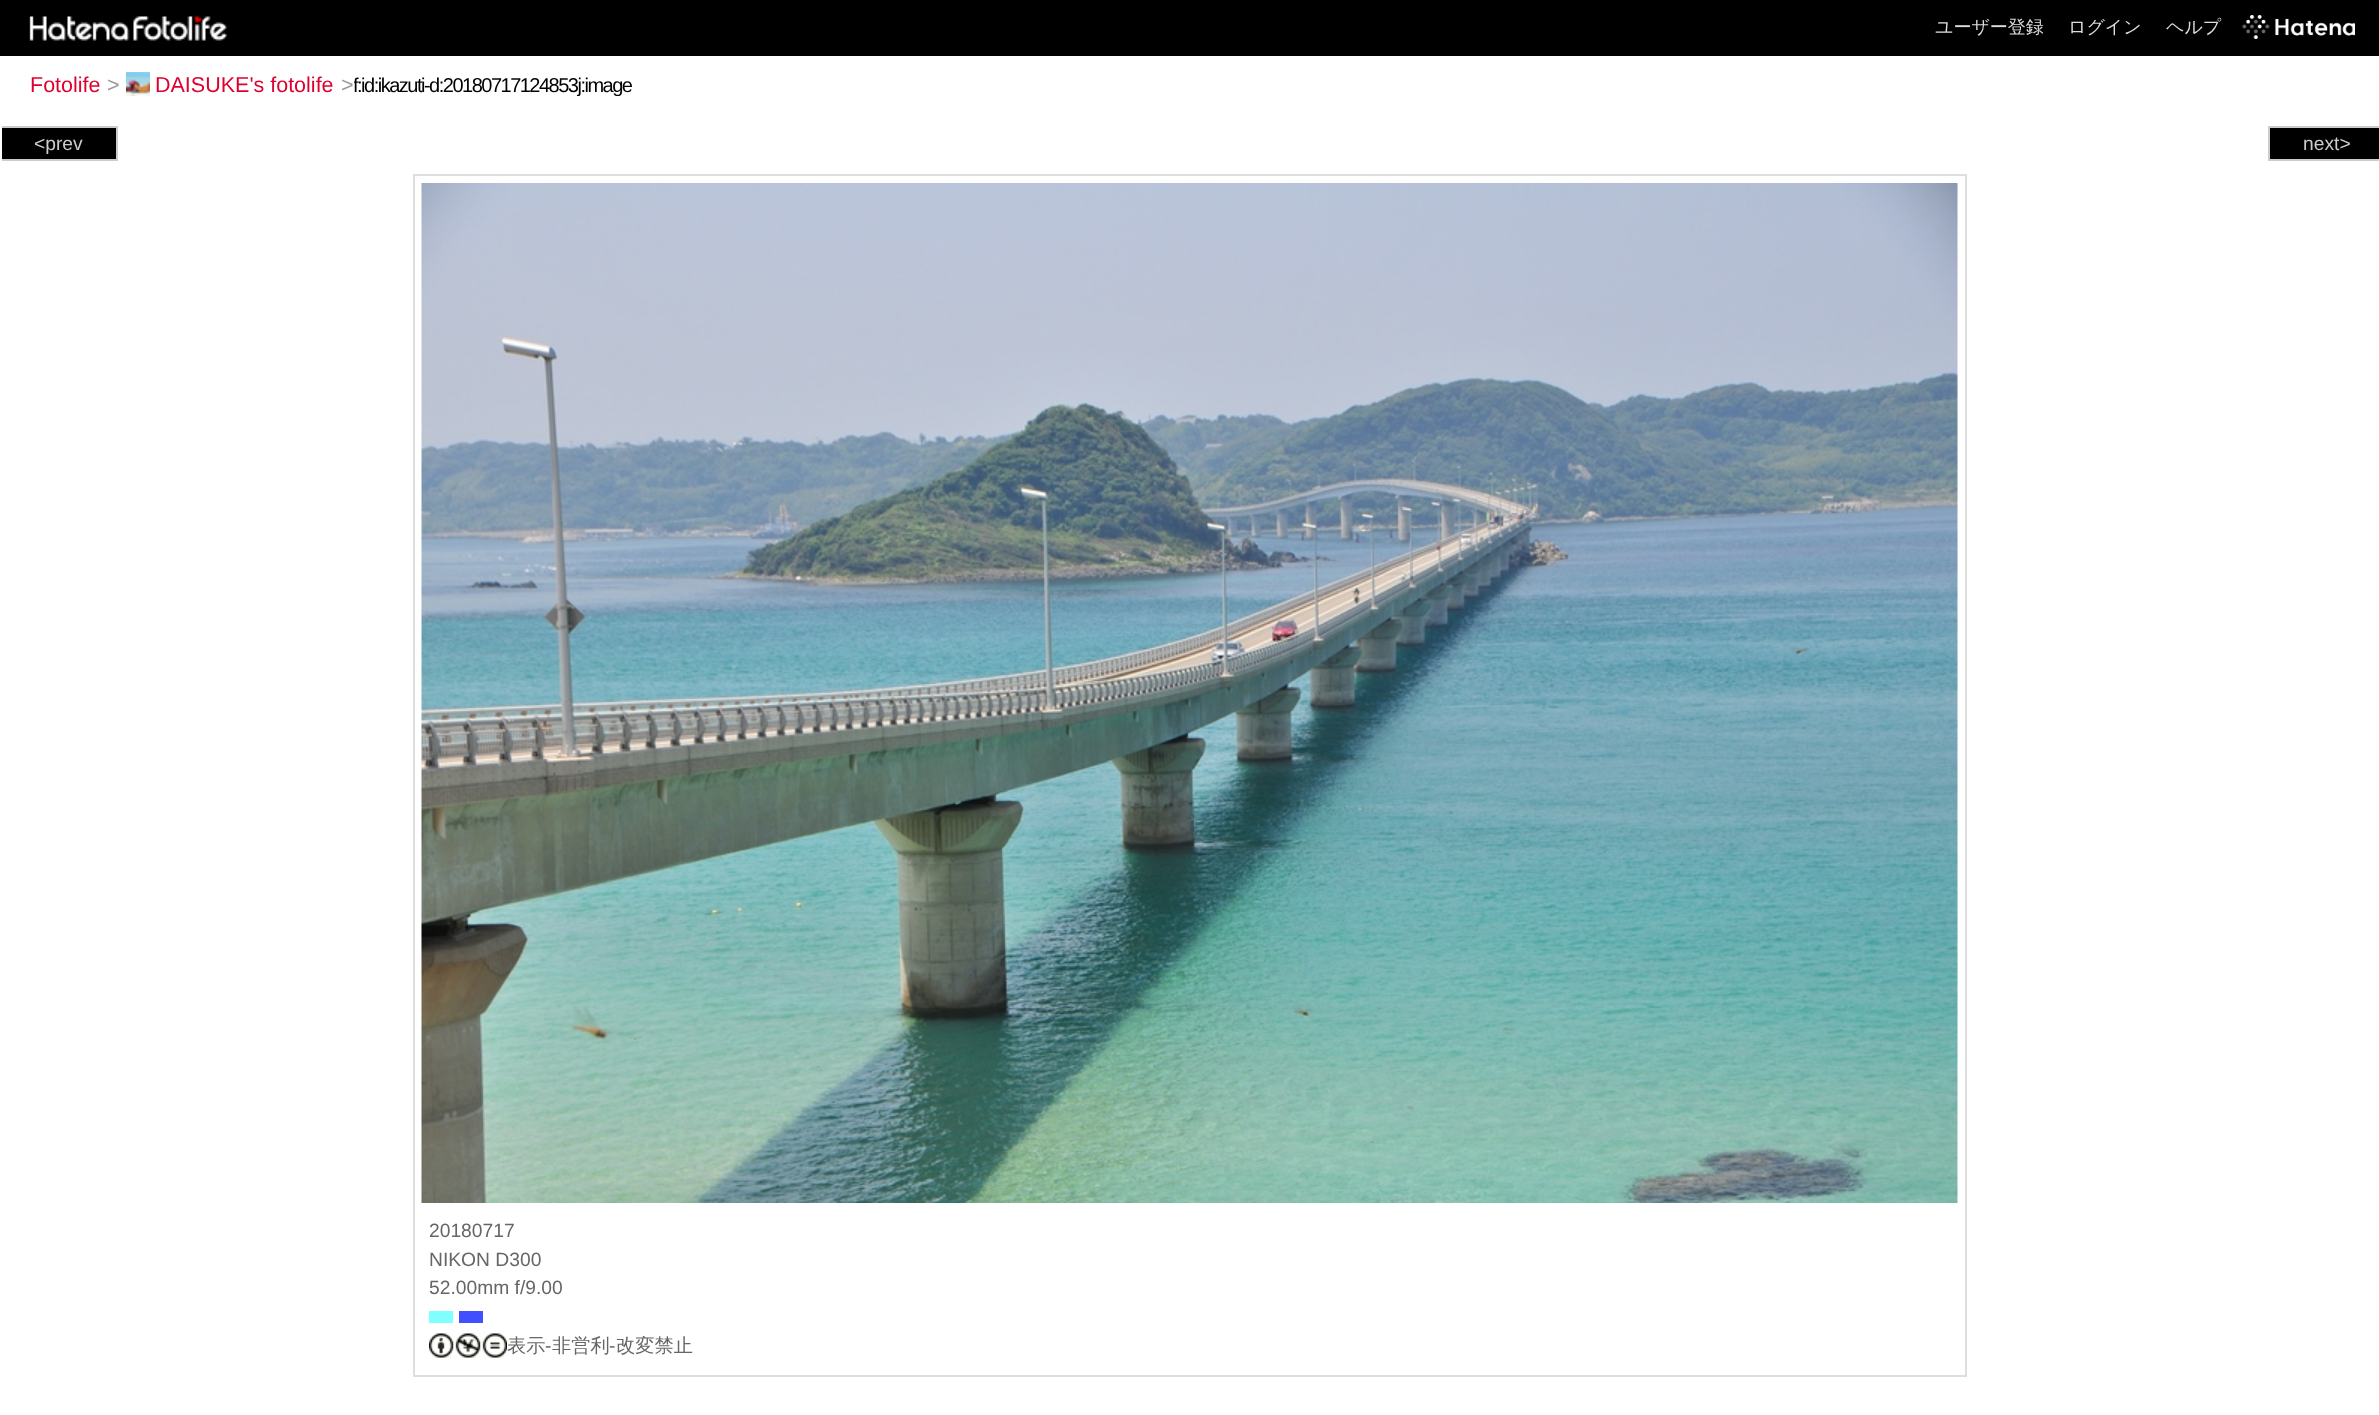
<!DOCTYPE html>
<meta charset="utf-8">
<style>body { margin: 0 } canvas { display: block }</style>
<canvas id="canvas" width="2379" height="1415"></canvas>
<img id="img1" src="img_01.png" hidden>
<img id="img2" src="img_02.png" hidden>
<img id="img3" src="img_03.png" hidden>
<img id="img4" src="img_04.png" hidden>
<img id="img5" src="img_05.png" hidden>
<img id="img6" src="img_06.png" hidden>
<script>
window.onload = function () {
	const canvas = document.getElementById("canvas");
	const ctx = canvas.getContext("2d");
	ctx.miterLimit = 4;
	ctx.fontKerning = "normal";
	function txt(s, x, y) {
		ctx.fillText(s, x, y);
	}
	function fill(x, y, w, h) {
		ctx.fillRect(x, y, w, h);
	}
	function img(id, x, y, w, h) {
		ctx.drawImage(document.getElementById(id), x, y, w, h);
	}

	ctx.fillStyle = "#FFFFFF";
	fill(0, 0, 2379, 1415);
	ctx.fillStyle = "#000000";
	fill(0, 0, 2379, 56);
	img("img1", 29, 16, 101, 25);
	img("img2", 133, 16, 94, 25);
	img("img3", 2242, 15, 113, 24);
	img("img4", 126, 72, 24, 24);
	fill(2, 128, 114, 31);
	ctx.fillStyle = "#CCCCCC";
	fill(2, 126, 115, 2);
	fill(116, 126, 2, 35);
	fill(2, 159, 115, 2);
	ctx.fillStyle = "#000000";
	fill(2270, 128, 109, 31);
	ctx.fillStyle = "#CCCCCC";
	fill(2268, 126, 111, 2);
	fill(2268, 159, 111, 2);
	fill(2268, 126, 2, 35);
	ctx.strokeStyle = "#DEDEDE";
	ctx.lineWidth = 2;
	ctx.strokeRect(414, 175, 1552, 1201);
	img("img5", 421, 183, 1537, 1020);
	ctx.fillStyle = "#80FFFF";
	fill(429, 1311, 24, 12);
	ctx.fillStyle = "#4050FF";
	fill(459, 1311, 24, 12);
	img("img6", 429, 1333, 78, 25);
	ctx.font = "500 18px WenQuanYi Zen Hei";
	ctx.fillStyle = "#DDDDDD";
	txt("ユーザー登録", 1935, 33);
	txt("ログイン", 2068, 33);
	txt("ヘルプ", 2166, 33);
	ctx.font = "21.5px Liberation Sans";
	ctx.fillStyle = "#DE002F";
	txt("Fotolife", 30, 92);
	ctx.fillStyle = "#999999";
	txt(">", 107, 92);
	ctx.fillStyle = "#DE002F";
	txt("DAISUKE's fotolife", 155, 92);
	ctx.fillStyle = "#999999";
	txt(">", 341, 92);
	ctx.save();
	ctx.beginPath();
	ctx.rect(354, 74, 566, 22);
	ctx.clip();
	ctx.letterSpacing = "-1.5px";
	ctx.font = "20px Liberation Sans";
	ctx.fillStyle = "#000000";
	txt("f:id:ikazuti-d:20180717124853j:image", 353, 92);
	ctx.restore();
	ctx.font = "19.25px Liberation Sans";
	ctx.fillStyle = "#CCCCCC";
	txt("<prev", 34, 150);
	txt("next>", 2303, 150);
	ctx.fillStyle = "#666666";
	txt("20180717", 429, 1237);
	txt("NIKON D300", 429, 1266);
	txt("52.00mm f/9.00", 429, 1294);
	ctx.font = "500 19.25px WenQuanYi Zen Hei";
	txt("表示", 507, 1352);
	ctx.font = "19.25px Liberation Sans";
	txt("-", 545, 1352);
	ctx.font = "500 19.25px WenQuanYi Zen Hei";
	txt("非営利", 552, 1352);
	ctx.font = "19.25px Liberation Sans";
	txt("-", 609, 1352);
	ctx.font = "500 19.25px WenQuanYi Zen Hei";
	txt("改変禁止", 616, 1352);
};
</script>
